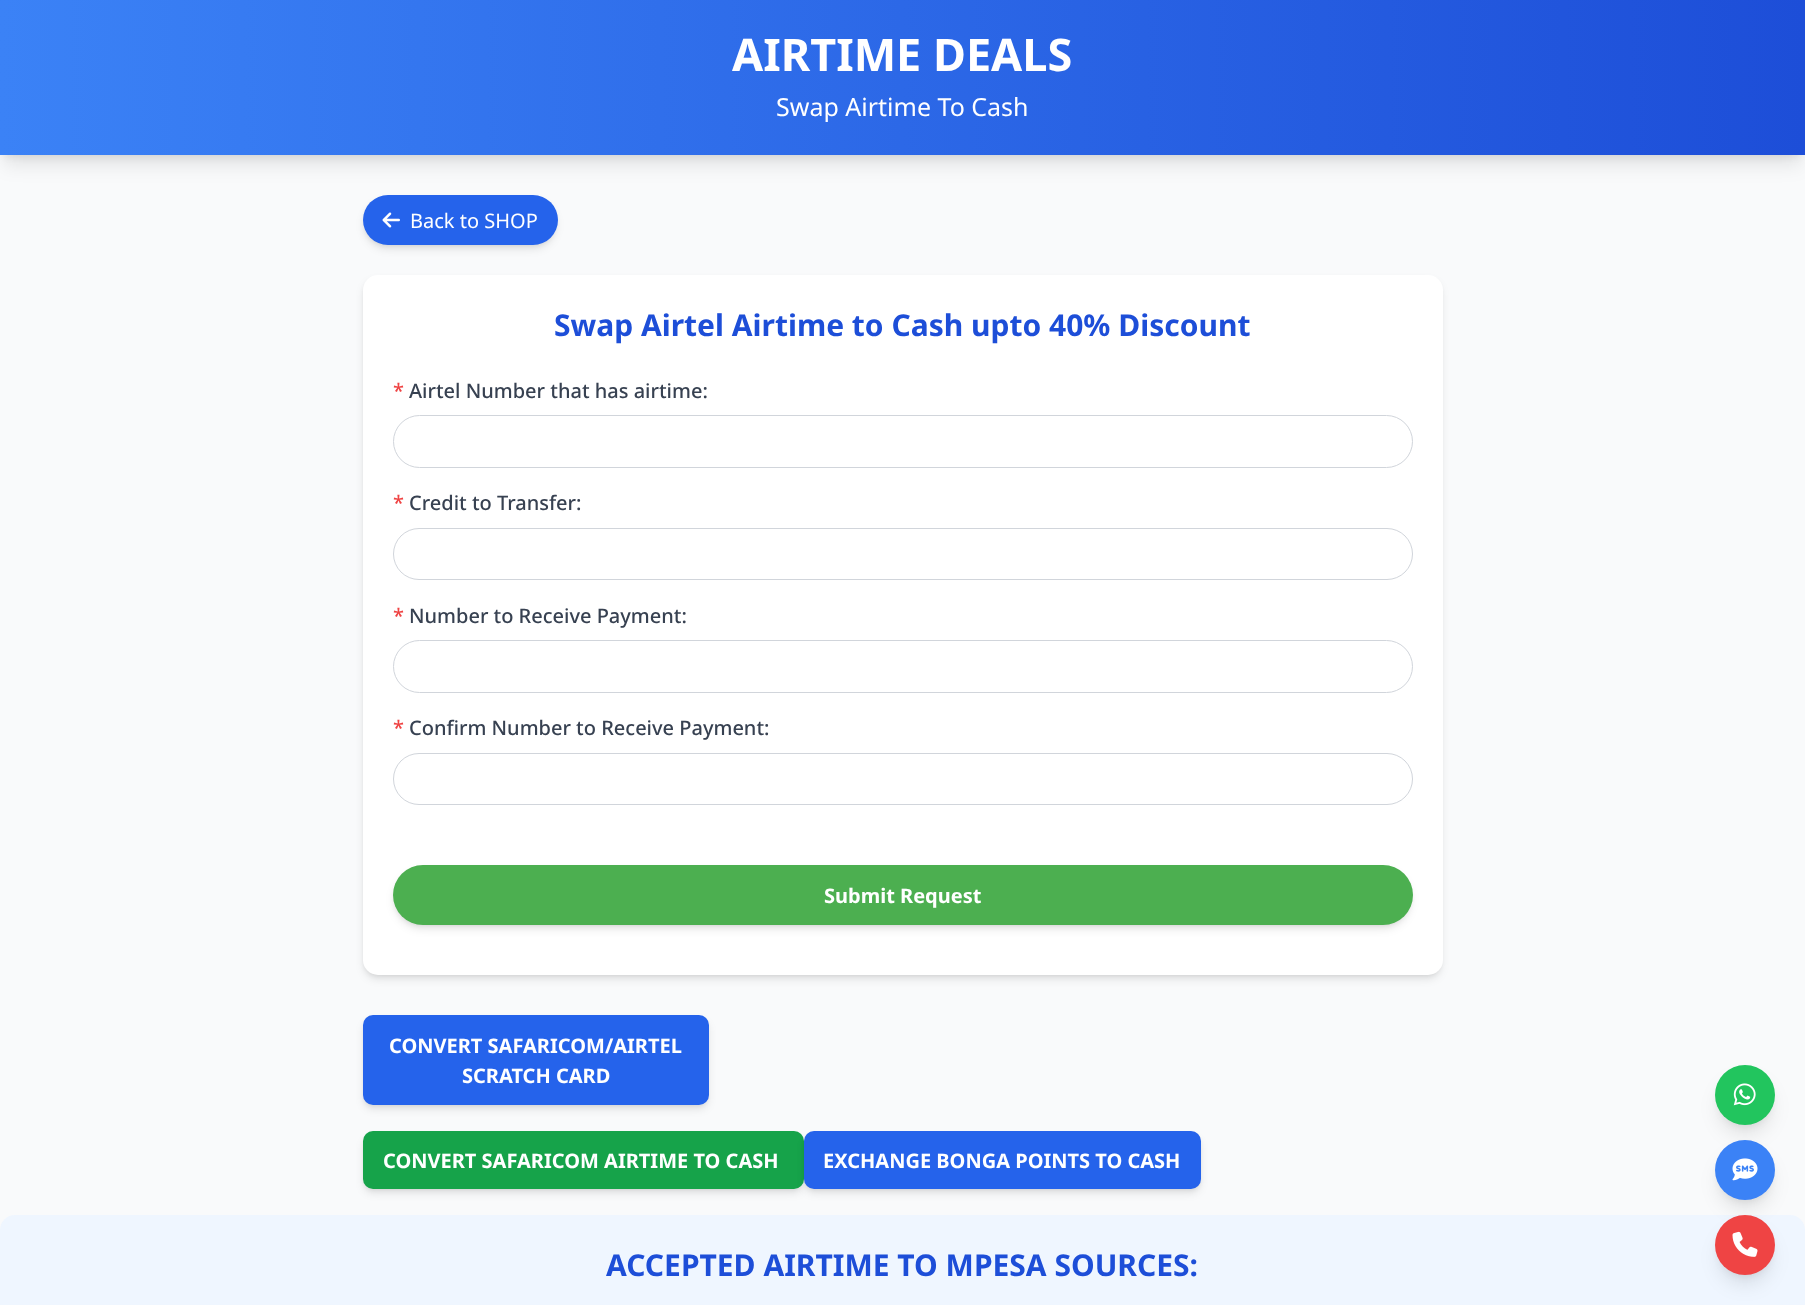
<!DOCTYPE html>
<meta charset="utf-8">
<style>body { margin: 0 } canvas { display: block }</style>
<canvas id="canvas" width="1805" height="1305"></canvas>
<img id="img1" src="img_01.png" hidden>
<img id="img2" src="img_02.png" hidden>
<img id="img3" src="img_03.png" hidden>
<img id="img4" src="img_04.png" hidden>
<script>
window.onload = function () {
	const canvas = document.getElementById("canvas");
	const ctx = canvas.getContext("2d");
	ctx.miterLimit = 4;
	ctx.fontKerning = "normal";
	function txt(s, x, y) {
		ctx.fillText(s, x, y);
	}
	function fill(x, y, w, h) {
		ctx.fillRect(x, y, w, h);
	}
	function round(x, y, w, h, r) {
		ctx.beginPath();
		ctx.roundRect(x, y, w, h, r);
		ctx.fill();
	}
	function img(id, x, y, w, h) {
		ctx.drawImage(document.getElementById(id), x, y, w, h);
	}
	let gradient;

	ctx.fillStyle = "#F9FAFB";
	fill(0, 0, 1805, 1305);
	ctx.fillStyle = "rgba(0, 0, 0, 0.1)";
	ctx.filter = "blur(4px)";
	ctx.beginPath();
	ctx.rect(5, 10, 1795, 145);
	ctx.fill();
	ctx.filter = "none";
	ctx.filter = "blur(9.5px)";
	ctx.beginPath();
	ctx.rect(4, 16, 1797, 148);
	ctx.fill();
	ctx.filter = "none";
	gradient = ctx.createLinearGradient(0, 78, 1805, 77);
	gradient.addColorStop(0, "#3B82F6");
	gradient.addColorStop(1, "#1D4ED8");
	ctx.fillStyle = gradient;
	fill(0, 0, 1805, 155);
	ctx.fillStyle = "rgba(0, 0, 0, 0.1)";
	ctx.filter = "blur(2.5px)";
	ctx.beginPath();
	ctx.roundRect(365, 200, 190, 45, 22.5);
	ctx.fill();
	ctx.filter = "none";
	ctx.filter = "blur(4px)";
	ctx.beginPath();
	ctx.roundRect(364, 201, 192, 48, 24);
	ctx.fill();
	ctx.filter = "none";
	ctx.fillStyle = "#2563EB";
	round(363, 195, 195, 50, 25);
	img("img1", 382, 212, 18, 16);
	ctx.fillStyle = "rgba(0, 0, 0, 0.1)";
	ctx.filter = "blur(2.5px)";
	ctx.beginPath();
	ctx.roundRect(365, 280, 1075, 695, 13);
	ctx.fill();
	ctx.filter = "none";
	ctx.filter = "blur(4px)";
	ctx.beginPath();
	ctx.roundRect(364, 281, 1077, 698, 14);
	ctx.fill();
	ctx.filter = "none";
	ctx.fillStyle = "#FFFFFF";
	round(363, 275, 1080, 700, 15);
	ctx.beginPath();
	ctx.roundRect(393.5, 415.5, 1019, 52, 26);
	ctx.strokeStyle = "#D1D5DB";
	ctx.stroke();
	ctx.beginPath();
	ctx.roundRect(393.5, 528.5, 1019, 51, 25.5);
	ctx.stroke();
	ctx.beginPath();
	ctx.roundRect(393.5, 640.5, 1019, 52, 26);
	ctx.stroke();
	ctx.beginPath();
	ctx.roundRect(393.5, 753.5, 1019, 51, 25.5);
	ctx.stroke();
	ctx.fillStyle = "rgba(0, 0, 0, 0.1)";
	ctx.filter = "blur(2.5px)";
	ctx.beginPath();
	ctx.roundRect(395, 870, 1015, 55, 27.5);
	ctx.fill();
	ctx.filter = "none";
	ctx.filter = "blur(4px)";
	ctx.beginPath();
	ctx.roundRect(394, 871, 1017, 58, 29);
	ctx.fill();
	ctx.filter = "none";
	ctx.fillStyle = "#4CAF50";
	round(393, 865, 1020, 60, 30);
	ctx.fillStyle = "rgba(0, 0, 0, 0.1)";
	ctx.filter = "blur(2.5px)";
	ctx.beginPath();
	ctx.roundRect(365, 1020, 341, 85, 8);
	ctx.fill();
	ctx.filter = "none";
	ctx.filter = "blur(4px)";
	ctx.beginPath();
	ctx.roundRect(364, 1021, 344, 88, 9);
	ctx.fill();
	ctx.filter = "none";
	ctx.fillStyle = "#2563EB";
	round(363, 1015, 346, 90, 10);
	ctx.fillStyle = "rgba(0, 0, 0, 0.1)";
	ctx.filter = "blur(2.5px)";
	ctx.beginPath();
	ctx.roundRect(365, 1136, 436, 53, 8);
	ctx.fill();
	ctx.filter = "none";
	ctx.filter = "blur(4px)";
	ctx.beginPath();
	ctx.roundRect(364, 1138, 439, 55, 9);
	ctx.fill();
	ctx.filter = "none";
	ctx.fillStyle = "#16A34A";
	round(363, 1131, 441, 58, 10);
	ctx.fillStyle = "rgba(0, 0, 0, 0.1)";
	ctx.filter = "blur(2.5px)";
	ctx.beginPath();
	ctx.roundRect(806, 1136, 393, 53, 8);
	ctx.fill();
	ctx.filter = "none";
	ctx.filter = "blur(4px)";
	ctx.beginPath();
	ctx.roundRect(805, 1138, 395, 55, 9);
	ctx.fill();
	ctx.filter = "none";
	ctx.fillStyle = "#2563EB";
	round(804, 1131, 397, 58, 10);
	ctx.fillStyle = "rgba(0, 0, 0, 0.1)";
	ctx.filter = "blur(4px)";
	ctx.beginPath();
	ctx.roundRect(1720, 1075, 50, 50, 25);
	ctx.fill();
	ctx.filter = "none";
	ctx.filter = "blur(9.5px)";
	ctx.beginPath();
	ctx.roundRect(1719, 1081, 52, 53, 26);
	ctx.fill();
	ctx.filter = "none";
	ctx.fillStyle = "#22C55E";
	ctx.beginPath();
	ctx.arc(1745, 1095, 30, 0, Math.PI * 2);
	ctx.fill();
	img("img2", 1733, 1083, 23, 23);
	ctx.fillStyle = "rgba(0, 0, 0, 0.1)";
	ctx.filter = "blur(4px)";
	ctx.beginPath();
	ctx.roundRect(1720, 1150, 50, 50, 25);
	ctx.fill();
	ctx.filter = "none";
	ctx.fillStyle = "#EFF6FF";
	round(0, 1215, 1805, 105, 15);
	ctx.fillStyle = "rgba(0, 0, 0, 0.1)";
	ctx.filter = "blur(9.5px)";
	ctx.beginPath();
	ctx.roundRect(1719, 1156, 52, 53, 26);
	ctx.fill();
	ctx.filter = "none";
	ctx.fillStyle = "#3B82F6";
	ctx.beginPath();
	ctx.arc(1745, 1170, 30, 0, Math.PI * 2);
	ctx.fill();
	img("img3", 1732, 1158, 26, 23);
	ctx.fillStyle = "rgba(0, 0, 0, 0.1)";
	ctx.filter = "blur(4px)";
	ctx.beginPath();
	ctx.roundRect(1720, 1225, 50, 50, 25);
	ctx.fill();
	ctx.filter = "none";
	ctx.filter = "blur(9.5px)";
	ctx.beginPath();
	ctx.roundRect(1719, 1231, 52, 53, 26);
	ctx.fill();
	ctx.filter = "none";
	ctx.fillStyle = "#EF4444";
	ctx.beginPath();
	ctx.arc(1745, 1245, 30, 0, Math.PI * 2);
	ctx.fill();
	img("img4", 1732, 1231, 26, 26);
	ctx.font = "bold 45px Noto Sans";
	ctx.fillStyle = "#FFFFFF";
	txt("AIRTIME DEALS", 732, 71);
	ctx.font = "25px Noto Sans";
	txt("Swap Airtime To Cash", 776, 116);
	ctx.font = "20px Noto Sans";
	txt("Back to SHOP", 410, 228);
	ctx.font = "bold 30px Noto Sans";
	ctx.fillStyle = "#1D4ED8";
	txt("Swap Airtel Airtime to Cash upto 40% Discount", 554, 336);
	ctx.font = "500 20px Noto Sans";
	ctx.fillStyle = "#EF4444";
	txt("*", 393, 398);
	ctx.fillStyle = "#374151";
	txt("Airtel Number that has airtime:", 409, 398);
	ctx.fillStyle = "#EF4444";
	txt("*", 393, 510);
	ctx.fillStyle = "#374151";
	txt("Credit to Transfer:", 409, 510);
	ctx.fillStyle = "#EF4444";
	txt("*", 393, 623);
	ctx.fillStyle = "#374151";
	txt("Number to Receive Payment:", 409, 623);
	ctx.fillStyle = "#EF4444";
	txt("*", 393, 735);
	ctx.fillStyle = "#374151";
	txt("Confirm Number to Receive Payment:", 409, 735);
	ctx.font = "bold 20px Noto Sans";
	ctx.fillStyle = "#FFFFFF";
	txt("Submit Request", 824, 903);
	txt("CONVERT SAFARICOM/AIRTEL", 389, 1053);
	txt("SCRATCH CARD", 462, 1083);
	txt("CONVERT SAFARICOM AIRTIME TO CASH", 383, 1168);
	txt("EXCHANGE BONGA POINTS TO CASH", 823, 1168);
	ctx.font = "bold 30px Noto Sans";
	ctx.fillStyle = "#1D4ED8";
	txt("ACCEPTED AIRTIME TO MPESA SOURCES:", 606, 1276);
};
</script>
